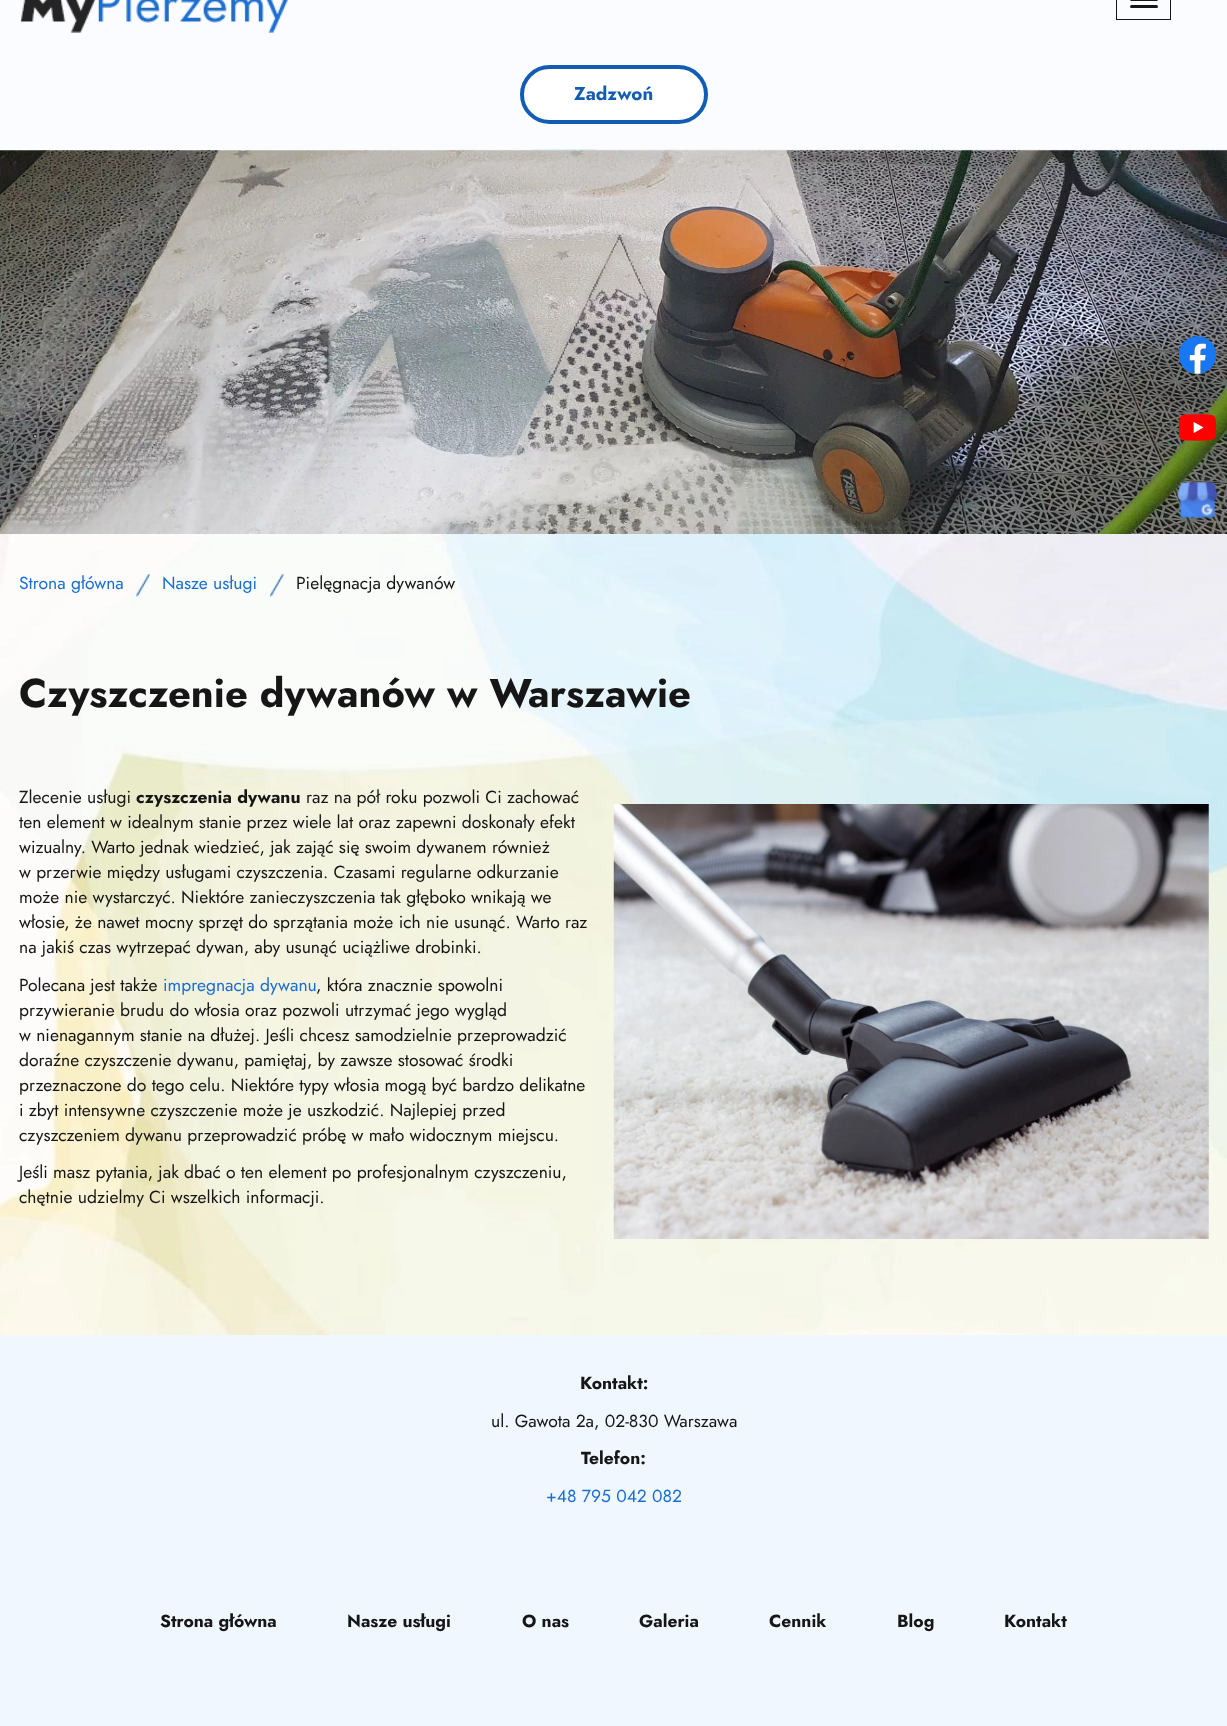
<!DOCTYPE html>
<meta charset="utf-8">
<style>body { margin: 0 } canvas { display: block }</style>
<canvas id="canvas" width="1227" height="1726"></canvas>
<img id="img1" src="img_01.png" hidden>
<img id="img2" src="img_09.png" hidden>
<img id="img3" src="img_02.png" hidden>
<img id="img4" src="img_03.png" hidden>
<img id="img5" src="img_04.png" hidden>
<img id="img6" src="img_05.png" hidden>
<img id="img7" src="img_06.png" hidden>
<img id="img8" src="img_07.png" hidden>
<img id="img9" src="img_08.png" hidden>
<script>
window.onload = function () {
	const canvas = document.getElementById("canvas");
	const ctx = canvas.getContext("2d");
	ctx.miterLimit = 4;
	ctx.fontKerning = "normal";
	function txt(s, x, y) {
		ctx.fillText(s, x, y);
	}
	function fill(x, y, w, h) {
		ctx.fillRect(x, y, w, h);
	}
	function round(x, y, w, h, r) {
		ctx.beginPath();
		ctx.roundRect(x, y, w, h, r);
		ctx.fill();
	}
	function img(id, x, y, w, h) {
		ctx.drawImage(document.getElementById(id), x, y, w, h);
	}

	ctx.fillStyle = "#FFFFFF";
	fill(0, 0, 1227, 1726);
	ctx.fillStyle = "#FAFCFF";
	fill(0, 0, 1227, 149);
	img("img1", 20, 0, 269, 33);
	ctx.strokeStyle = "#161616";
	ctx.strokeRect(1116.5, -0.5, 54, 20);
	ctx.fillStyle = "#161616";
	round(1130, -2, 28, 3, 1.5);
	round(1130, 5, 28, 3, 1.5);
	ctx.fillStyle = "#FFFFFF";
	ctx.beginPath();
	ctx.roundRect(522, 67, 184, 55, 27.5);
	ctx.fill();
	ctx.strokeStyle = "#125DB3";
	ctx.lineWidth = 4;
	ctx.stroke();
	img("img2", 0, 149, 1227, 1186);
	img("img3", 0, 150, 1227, 384);
	img("img4", 136, 574, 14, 23);
	img("img5", 270, 574, 14, 23);
	img("img6", 613, 804, 596, 435);
	img("img7", 1179, 336, 37, 38);
	img("img8", 1179, 414, 37, 27);
	img("img9", 1176, 481, 42, 38);
	ctx.fillStyle = "#F0F7FF";
	fill(0, 1335, 1227, 391);
	ctx.font = "bold 18.75px Jost";
	ctx.fillStyle = "#125DB3";
	txt("Zadzwoń", 574, 100);
	ctx.font = "17.5px Jost";
	ctx.fillStyle = "#1B6ED1";
	txt("Strona główna", 19, 589);
	txt("Nasze usługi", 162, 589);
	ctx.fillStyle = "#161616";
	txt("Pielęgnacja dywanów", 296, 589);
	ctx.font = "bold 40px Jost";
	txt("Czyszczenie dywanów w Warszawie", 19, 707);
	ctx.font = "17.5px Jost";
	txt("Zlecenie usługi", 19, 803);
	ctx.font = "bold 17.5px Jost";
	txt("czyszczenia dywanu", 136, 803);
	ctx.font = "17.5px Jost";
	txt("raz na pół roku pozwoli Ci zachować", 306, 803);
	txt("ten element w idealnym stanie przez wiele lat oraz zapewni doskonały efekt", 19, 828);
	txt("wizualny. Warto jednak wiedzieć, jak zająć się swoim dywanem również", 19, 853);
	txt("w przerwie między usługami czyszczenia. Czasami regularne odkurzanie", 19, 878);
	txt("może nie wystarczyć. Niektóre zanieczyszczenia tak głęboko wnikają we", 19, 903);
	txt("włosie, że nawet mocny sprzęt do sprzątania może ich nie usunąć. Warto raz", 19, 928);
	txt("na jakiś czas wytrzepać dywan, aby usunąć uciążliwe drobinki.", 19, 953);
	txt("Polecana jest także", 19, 991);
	ctx.fillStyle = "#1B6ED1";
	txt("impregnacja dywanu", 163, 991);
	ctx.fillStyle = "#161616";
	txt(", która znacznie spowolni", 316, 991);
	txt("przywieranie brudu do włosia oraz pozwoli utrzymać jego wygląd", 19, 1016);
	txt("w nienagannym stanie na dłużej. Jeśli chcesz samodzielnie przeprowadzić", 19, 1041);
	txt("doraźne czyszczenie dywanu, pamiętaj, by zawsze stosować środki", 19, 1066);
	txt("przeznaczone do tego celu. Niektóre typy włosia mogą być bardzo delikatne", 19, 1091);
	txt("i zbyt intensywne czyszczenie może je uszkodzić. Najlepiej przed", 19, 1116);
	txt("czyszczeniem dywanu przeprowadzić próbę w mało widocznym miejscu.", 19, 1141);
	txt("Jeśli masz pytania, jak dbać o ten element po profesjonalnym czyszczeniu,", 19, 1178);
	txt("chętnie udzielmy Ci wszelkich informacji.", 19, 1203);
	ctx.font = "bold 17.5px Jost";
	txt("Kontakt:", 580, 1389);
	ctx.font = "17.5px Jost";
	txt("ul. Gawota 2a, 02-830 Warszawa", 491, 1427);
	ctx.font = "bold 17.5px Jost";
	txt("Telefon:", 581, 1464);
	ctx.font = "17.5px Jost";
	ctx.fillStyle = "#1B6ED1";
	txt("+48 795 042 082", 546, 1502);
	ctx.font = "bold 17.5px Jost";
	ctx.fillStyle = "#161616";
	txt("Strona główna", 160, 1627);
	txt("Nasze usługi", 347, 1627);
	txt("O nas", 522, 1627);
	txt("Galeria", 639, 1627);
	txt("Cennik", 769, 1627);
	txt("Blog", 897, 1627);
	txt("Kontakt", 1004, 1627);
};
</script>
